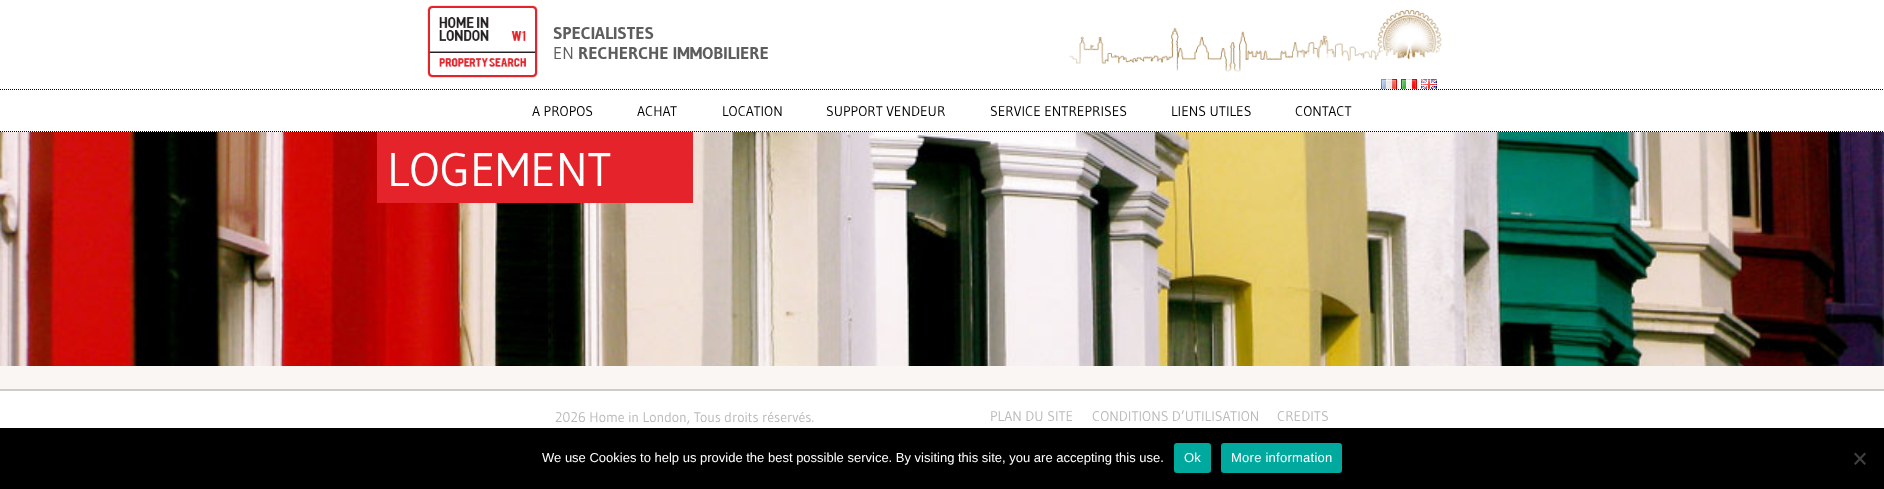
<!DOCTYPE html>
<meta charset="utf-8">
<style>body { margin: 0 } canvas { display: block }</style>
<canvas id="canvas" width="1884" height="489"></canvas>
<img id="img1" src="img_01.png" hidden>
<img id="img2" src="img_02.png" hidden>
<img id="img3" src="img_03.png" hidden>
<img id="img4" src="img_04.png" hidden>
<img id="img5" src="img_05.png" hidden>
<img id="img6" src="img_06.png" hidden>
<script>
window.onload = function () {
	const canvas = document.getElementById("canvas");
	const ctx = canvas.getContext("2d");
	ctx.miterLimit = 4;
	ctx.fontKerning = "normal";
	function txt(s, x, y) {
		ctx.fillText(s, x, y);
	}
	function fill(x, y, w, h) {
		ctx.fillRect(x, y, w, h);
	}
	function round(x, y, w, h, r) {
		ctx.beginPath();
		ctx.roundRect(x, y, w, h, r);
		ctx.fill();
	}
	function img(id, x, y, w, h) {
		ctx.drawImage(document.getElementById(id), x, y, w, h);
	}

	ctx.fillStyle = "#FFFFFF";
	fill(0, 0, 1884, 489);
	img("img1", 427, 5, 111, 73);
	img("img2", 1069, 10, 373, 62);
	img("img3", 1381, 79, 16, 10);
	img("img4", 1401, 79, 16, 10);
	img("img5", 1421, 79, 16, 10);
	ctx.beginPath();
	ctx.moveTo(0, 89.5);
	ctx.lineTo(1884, 89.5);
	ctx.strokeStyle = "#000000";
	ctx.setLineDash([1, 1]);
	ctx.stroke();
	ctx.beginPath();
	ctx.moveTo(0, 131.5);
	ctx.lineTo(1884, 131.5);
	ctx.stroke();
	ctx.fillStyle = "#FAF6F3";
	fill(0, 366, 1884, 23);
	img("img6", 0, 132, 1884, 234);
	ctx.fillStyle = "#E5232A";
	fill(377, 132, 316, 71);
	ctx.fillStyle = "#CCCCCC";
	fill(0, 389, 1884, 2);
	ctx.fillStyle = "#000000";
	fill(0, 428, 1884, 61);
	ctx.fillStyle = "#00A99D";
	round(1174, 443, 37, 30, 3);
	round(1221, 443, 121, 30, 3);
	ctx.fillStyle = "#404040";
	ctx.beginPath();
	ctx.moveTo(1864.5, 452.5);
	ctx.lineTo(1866, 454);
	ctx.lineTo(1855.5, 465);
	ctx.lineTo(1854, 463.5);
	ctx.closePath();
	ctx.fill();
	ctx.beginPath();
	ctx.moveTo(1854, 454);
	ctx.lineTo(1855.5, 452.5);
	ctx.lineTo(1866, 463.5);
	ctx.lineTo(1864.5, 465);
	ctx.closePath();
	ctx.fill();
	ctx.font = "bold 17px Gudea";
	ctx.fillStyle = "#5D5D5D";
	txt("SPECIALISTES", 553, 39);
	ctx.font = "17px Gudea";
	txt("EN", 553, 59);
	ctx.font = "bold 17px Gudea";
	txt("RECHERCHE IMMOBILIERE", 578, 59);
	ctx.font = "14px Gudea";
	ctx.fillStyle = "#000000";
	txt("A PROPOS", 532, 116);
	txt("ACHAT", 637, 116);
	txt("LOCATION", 722, 116);
	txt("SUPPORT VENDEUR", 826, 116);
	txt("SERVICE ENTREPRISES", 990, 116);
	txt("LIENS UTILES", 1171, 116);
	txt("CONTACT", 1295, 116);
	ctx.font = "47px Gudea";
	ctx.fillStyle = "#FFFFFF";
	txt("LOGEMENT", 387, 186);
	ctx.font = "14px Gudea";
	ctx.fillStyle = "#BBBBBB";
	txt("2026 Home in London, Tous droits réservés.", 555, 422);
	txt("PLAN DU SITE", 990, 421);
	txt("CONDITIONS D’UTILISATION", 1092, 421);
	txt("CREDITS", 1277, 421);
	ctx.font = "13px Liberation Sans";
	ctx.fillStyle = "#FFFFFF";
	txt("We use Cookies to help us provide the best possible service. By visiting this site, you are accepting this use.", 542, 462);
	ctx.letterSpacing = "0.25px";
	txt("Ok", 1184, 462);
	txt("More information", 1231, 462);
};
</script>
